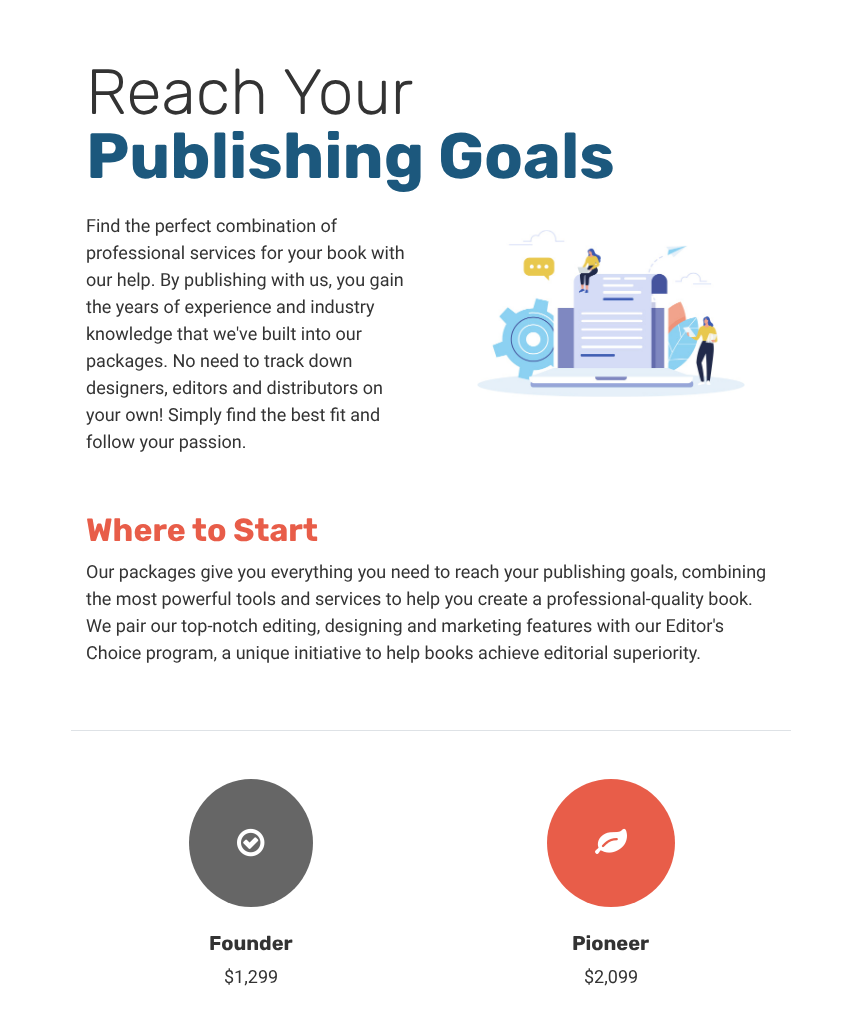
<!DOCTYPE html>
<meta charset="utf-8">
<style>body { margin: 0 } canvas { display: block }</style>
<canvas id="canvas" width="862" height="1033"></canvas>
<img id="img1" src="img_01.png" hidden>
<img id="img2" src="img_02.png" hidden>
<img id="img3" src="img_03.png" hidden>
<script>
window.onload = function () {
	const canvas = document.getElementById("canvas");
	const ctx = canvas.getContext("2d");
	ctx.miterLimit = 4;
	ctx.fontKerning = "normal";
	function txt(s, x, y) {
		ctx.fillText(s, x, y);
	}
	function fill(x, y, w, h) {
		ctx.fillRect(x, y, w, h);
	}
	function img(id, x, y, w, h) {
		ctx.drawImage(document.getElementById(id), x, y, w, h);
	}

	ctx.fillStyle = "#FFFFFF";
	fill(0, 0, 862, 1033);
	img("img1", 477, 230, 268, 167);
	ctx.fillStyle = "#DEE2E6";
	fill(71, 730, 720, 1);
	ctx.fillStyle = "#666666";
	ctx.beginPath();
	ctx.ellipse(251, 843, 62, 64, 0, 0, Math.PI * 2);
	ctx.fill();
	img("img2", 237, 828, 28, 29);
	ctx.fillStyle = "#E85D49";
	ctx.beginPath();
	ctx.arc(611, 843, 64, 0, Math.PI * 2);
	ctx.fill();
	img("img3", 595, 828, 32, 26);
	ctx.font = "300 64px Rubik";
	ctx.fillStyle = "#333333";
	txt("Reach Your", 86, 114);
	ctx.font = "bold 64px Rubik";
	ctx.fillStyle = "#1C587D";
	txt("Publishing Goals", 86, 178);
	ctx.font = "18px Roboto";
	ctx.fillStyle = "#333333";
	txt("Find the perfect combination of", 86, 232);
	txt("professional services for your book with", 86, 259);
	txt("our help. By publishing with us, you gain", 86, 286);
	txt("the years of experience and industry", 86, 313);
	txt("knowledge that we've built into our", 86, 340);
	txt("packages. No need to track down", 86, 367);
	txt("designers, editors and distributors on", 86, 394);
	txt("your own! Simply find the best fit and", 86, 421);
	txt("follow your passion.", 86, 448);
	ctx.font = "bold 32px Rubik";
	ctx.fillStyle = "#E85D49";
	txt("Where to Start", 86, 541);
	ctx.font = "18px Roboto";
	ctx.fillStyle = "#333333";
	txt("Our packages give you everything you need to reach your publishing goals, combining", 86, 578);
	txt("the most powerful tools and services to help you create a professional-quality book.", 86, 605);
	txt("We pair our top-notch editing, designing and marketing features with our Editor's", 86, 632);
	txt("Choice program, a unique initiative to help books achieve editorial superiority.", 86, 659);
	ctx.font = "bold 20px Rubik";
	txt("Founder", 209, 950);
	ctx.font = "18px Roboto";
	txt("$1,299", 224, 983);
	ctx.font = "bold 20px Rubik";
	txt("Pioneer", 572, 950);
	ctx.font = "18px Roboto";
	txt("$2,099", 584, 983);
};
</script>
